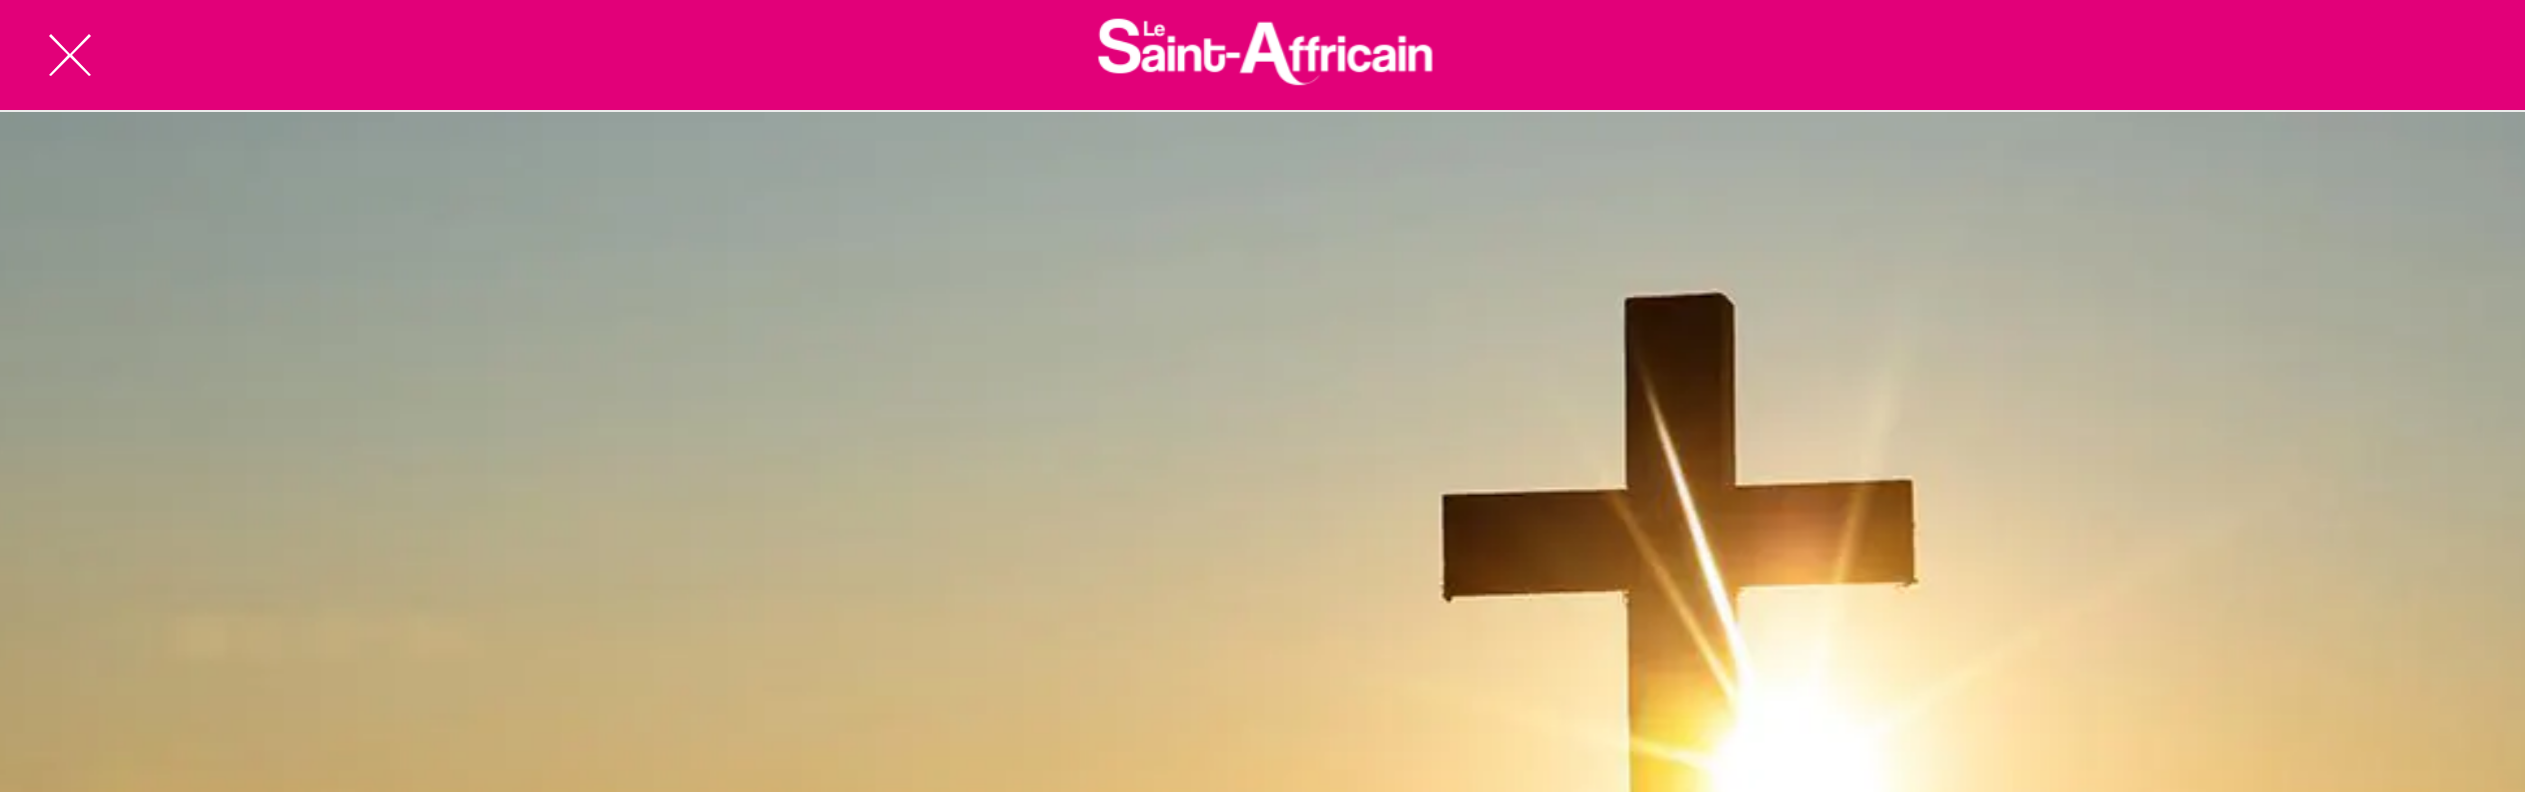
<!DOCTYPE html>
<meta charset="utf-8">
<style>body { margin: 0 } canvas { display: block }</style>
<canvas id="canvas" width="2525" height="792"></canvas>
<img id="img1" src="img_01.png" hidden>
<img id="img2" src="img_02.png" hidden>
<script>
window.onload = function () {
	const canvas = document.getElementById("canvas");
	const ctx = canvas.getContext("2d");
	ctx.miterLimit = 4;
	ctx.fontKerning = "normal";
	function fill(x, y, w, h) {
		ctx.fillRect(x, y, w, h);
	}
	function img(id, x, y, w, h) {
		ctx.drawImage(document.getElementById(id), x, y, w, h);
	}

	ctx.fillStyle = "#FFFFFF";
	fill(0, 0, 2525, 792);
	ctx.fillStyle = "#E20079";
	fill(0, 0, 2525, 110);
	ctx.fillStyle = "#EBEBEB";
	fill(0, 110, 2525, 2);
	ctx.fillStyle = "#FFFFFF";
	ctx.beginPath();
	ctx.moveTo(91, 36);
	ctx.lineTo(89, 34);
	ctx.lineTo(70, 54);
	ctx.lineTo(51, 34);
	ctx.lineTo(49, 36);
	ctx.lineTo(68, 55);
	ctx.lineTo(49, 75);
	ctx.lineTo(51, 76);
	ctx.lineTo(70, 57);
	ctx.lineTo(89, 76);
	ctx.lineTo(91, 75);
	ctx.lineTo(72, 55);
	ctx.closePath();
	ctx.fill();
	img("img1", 1097, 18, 336, 68);
	img("img2", 0, 112, 2525, 680);
};
</script>
